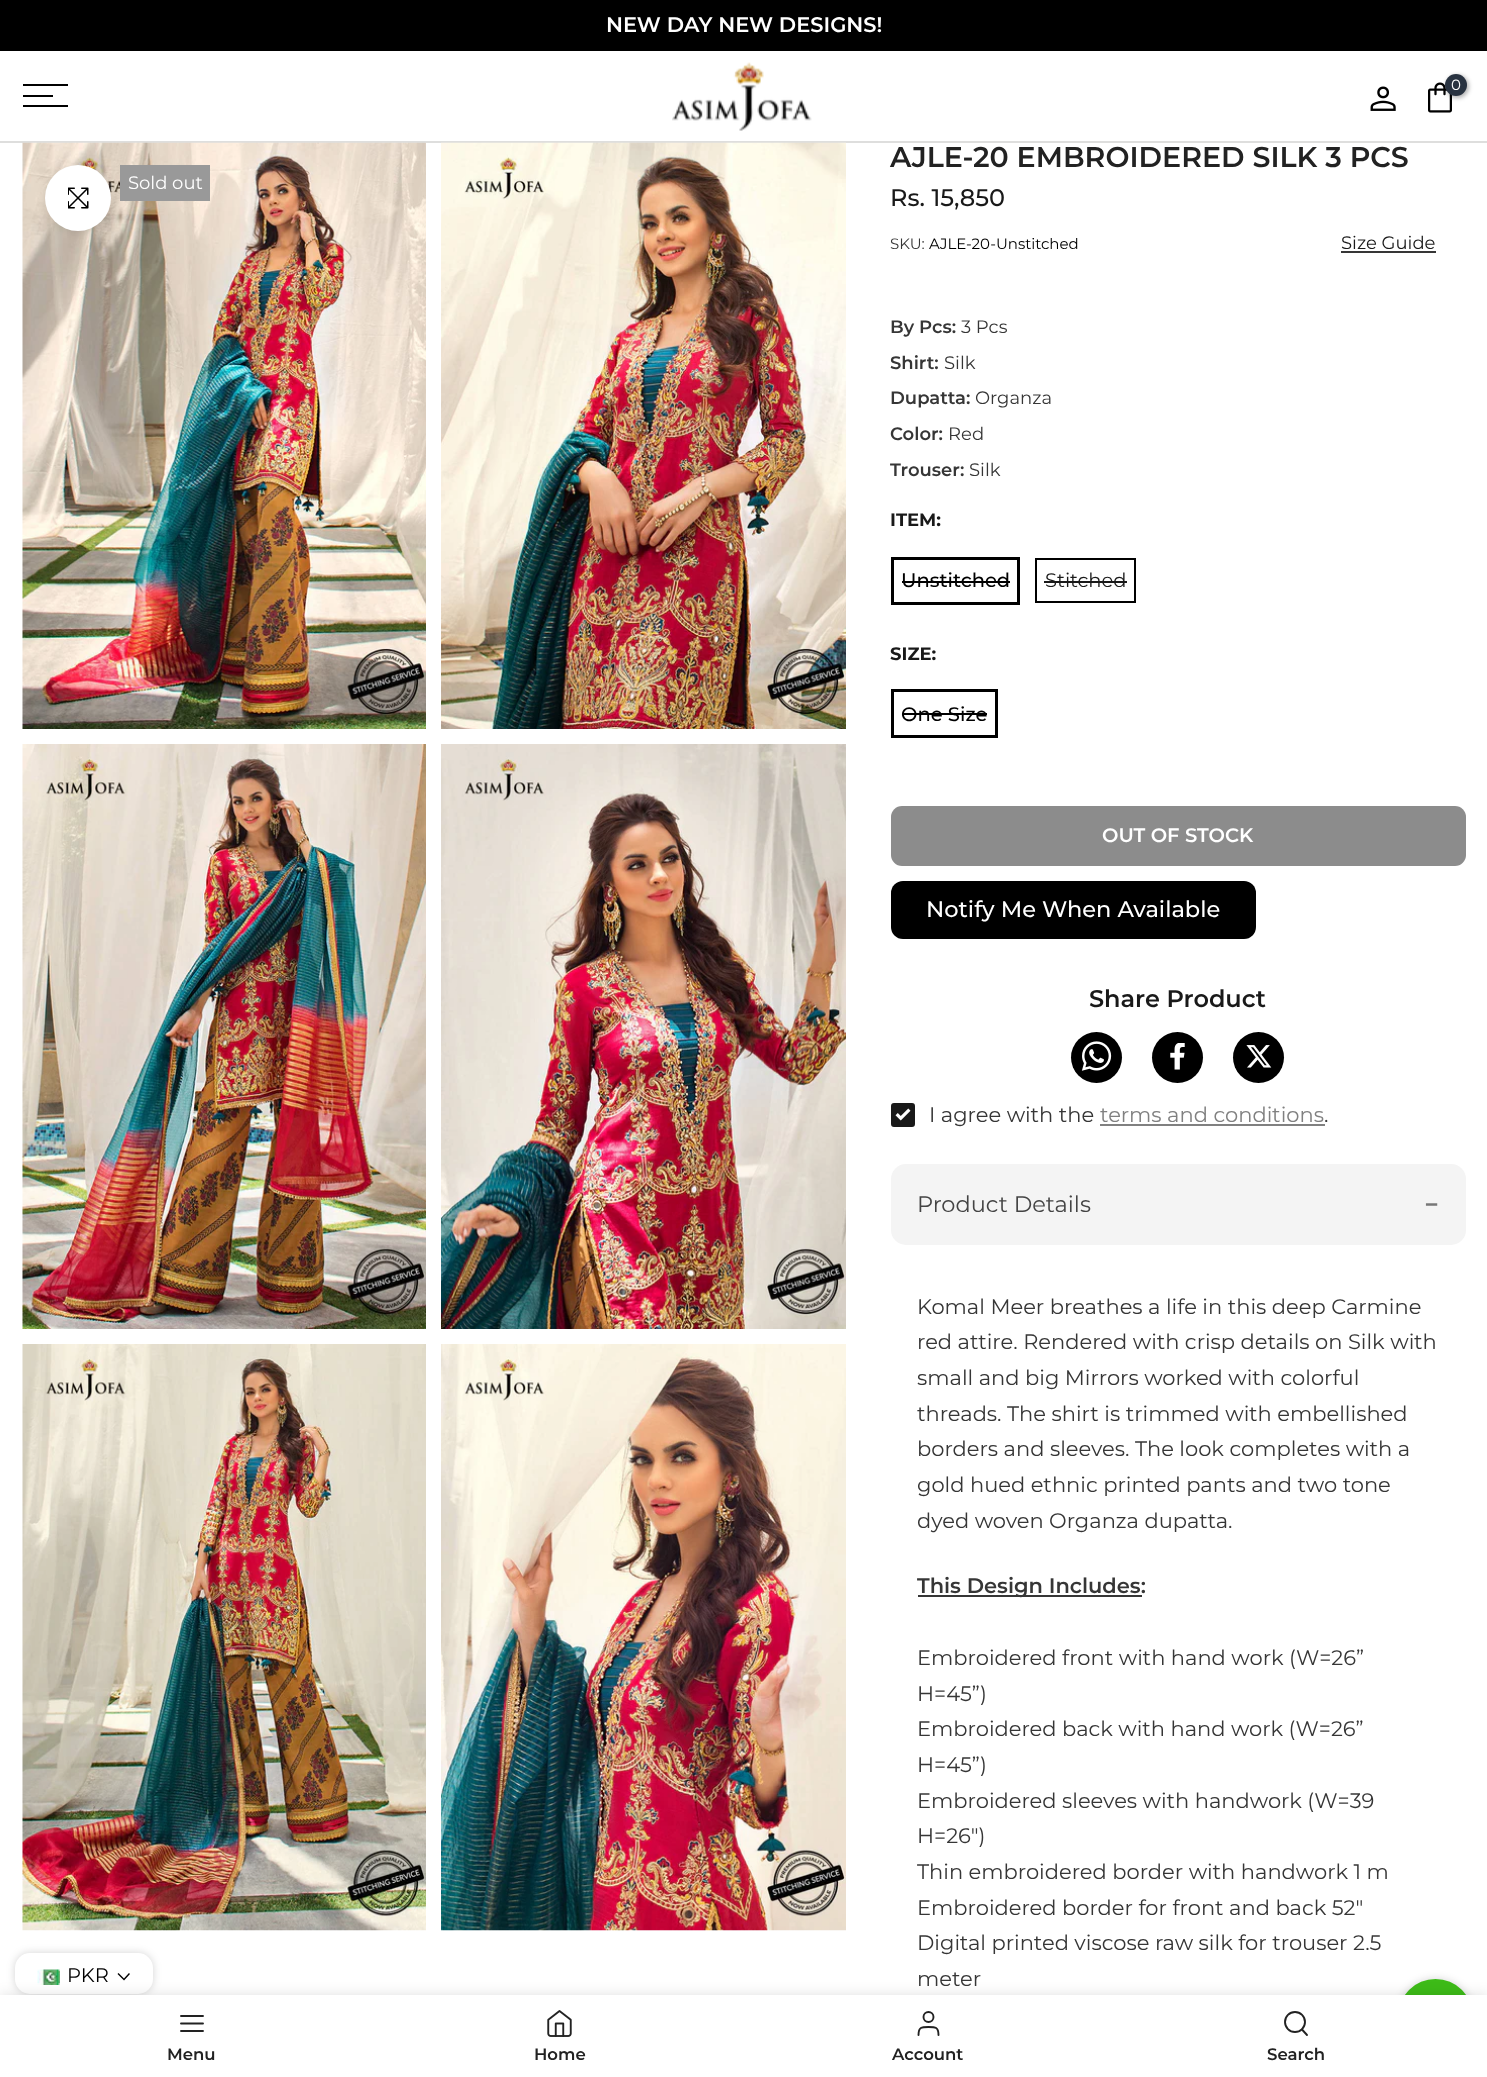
<!DOCTYPE html>
<meta charset="utf-8">
<style>body { margin: 0 } canvas { display: block }</style>
<canvas id="canvas" width="1487" height="2077"></canvas>
<img id="img1" src="img_01.png" hidden>
<img id="img2" src="img_02.png" hidden>
<img id="img3" src="img_03.png" hidden>
<img id="img4" src="img_04.png" hidden>
<img id="img5" src="img_05.png" hidden>
<img id="img6" src="img_06.png" hidden>
<img id="img7" src="img_07.png" hidden>
<img id="img8" src="img_08.png" hidden>
<img id="img9" src="img_09.png" hidden>
<img id="img10" src="img_10.png" hidden>
<img id="img11" src="img_11.png" hidden>
<img id="img12" src="img_12.png" hidden>
<img id="img13" src="img_13.png" hidden>
<img id="img14" src="img_14.png" hidden>
<img id="img15" src="img_15.png" hidden>
<img id="img16" src="img_16.png" hidden>
<script>
window.onload = function () {
	const canvas = document.getElementById("canvas");
	const ctx = canvas.getContext("2d");
	ctx.miterLimit = 4;
	ctx.fontKerning = "normal";
	function txt(s, x, y) {
		ctx.fillText(s, x, y);
	}
	function fill(x, y, w, h) {
		ctx.fillRect(x, y, w, h);
	}
	function round(x, y, w, h, r) {
		ctx.beginPath();
		ctx.roundRect(x, y, w, h, r);
		ctx.fill();
	}
	function img(id, x, y, w, h) {
		ctx.drawImage(document.getElementById(id), x, y, w, h);
	}

	ctx.fillStyle = "#FFFFFF";
	fill(0, 0, 1487, 2077);
	ctx.fillStyle = "rgba(0, 0, 0, 0.17)";
	ctx.filter = "blur(4px)";
	ctx.beginPath();
	ctx.roundRect(15, 1953, 138, 41, 15);
	ctx.fill();
	ctx.filter = "none";
	ctx.fillStyle = "#FFFFFF";
	round(15, 1953, 138, 41, 15);
	img("img1", 37, 1969, 23, 16);
	ctx.beginPath();
	ctx.moveTo(129, 1974);
	ctx.lineTo(124, 1979.5);
	ctx.lineTo(118.5, 1974);
	ctx.strokeStyle = "#000000";
	ctx.lineWidth = 1.4;
	ctx.lineCap = "square";
	ctx.stroke();
	ctx.fillStyle = "#000000";
	fill(0, 0, 1487, 51);
	ctx.fillStyle = "#DEDEDD";
	fill(0, 141, 1487, 2);
	ctx.fillStyle = "#000000";
	fill(23, 84, 45, 2);
	fill(23, 95, 30, 2);
	fill(23, 105, 45, 2);
	img("img2", 672, 62, 140, 69);
	img("img3", 1370, 86, 26, 25);
	img("img4", 1428, 82, 24, 31);
	ctx.fillStyle = "rgba(0, 0, 0, 0.3)";
	ctx.filter = "blur(2px)";
	ctx.beginPath();
	ctx.roundRect(1446, 75, 23, 23, 11.5);
	ctx.fill();
	ctx.filter = "none";
	ctx.fillStyle = "#293341";
	ctx.beginPath();
	ctx.arc(1456, 85, 11, 0, Math.PI * 2);
	ctx.fill();
	img("img5", 22, 142, 404, 587);
	img("img6", 441, 142, 405, 587);
	img("img7", 22, 744, 404, 585);
	img("img8", 441, 744, 405, 585);
	img("img9", 22, 1344, 404, 587);
	img("img10", 441, 1344, 405, 587);
	ctx.fillStyle = "rgba(0, 0, 0, 0.09)";
	ctx.filter = "blur(4px)";
	ctx.beginPath();
	ctx.roundRect(45, 165, 66, 66, 33);
	ctx.fill();
	ctx.filter = "none";
	ctx.fillStyle = "#FFFFFF";
	ctx.beginPath();
	ctx.arc(78, 198, 33, 0, Math.PI * 2);
	ctx.fill();
	img("img11", 68, 187, 21, 22);
	ctx.fillStyle = "#999999";
	fill(120, 165, 90, 36);
	ctx.fillStyle = "#363636";
	fill(1341, 251, 95, 2);
	ctx.lineWidth = 3;
	ctx.strokeRect(892.5, 558.5, 126, 45);
	ctx.fillStyle = "#000000";
	fill(902, 581, 108, 2);
	ctx.lineWidth = 2;
	ctx.strokeRect(1036, 559, 99, 43);
	ctx.fillStyle = "#191919";
	fill(1044, 581, 83, 2);
	ctx.lineWidth = 3;
	ctx.strokeRect(892.5, 690.5, 104, 46);
	ctx.fillStyle = "#000000";
	fill(902, 713, 85, 2);
	ctx.fillStyle = "#8C8C8C";
	round(891, 806, 575, 60, 11);
	ctx.fillStyle = "#000000";
	round(891, 881, 365, 58, 12);
	ctx.beginPath();
	ctx.arc(1096.5, 1057.5, 25.5, 0, Math.PI * 2);
	ctx.fill();
	img("img12", 1081, 1041, 31, 30);
	ctx.beginPath();
	ctx.arc(1177.5, 1057.5, 25.5, 0, Math.PI * 2);
	ctx.fill();
	img("img13", 1170, 1043, 15, 27);
	ctx.beginPath();
	ctx.arc(1258.5, 1057.5, 25.5, 0, Math.PI * 2);
	ctx.fill();
	img("img14", 1246, 1045, 26, 23);
	ctx.fillStyle = "#191919";
	ctx.beginPath();
	ctx.roundRect(892, 1104, 22, 22, 2);
	ctx.fill();
	ctx.strokeStyle = "#191919";
	ctx.lineWidth = 2;
	ctx.stroke();
	img("img15", 895, 1108, 16, 13);
	ctx.fillStyle = "#808080";
	fill(1100, 1124, 225, 2);
	ctx.fillStyle = "#F4F4F4";
	round(891, 1164, 575, 81, 15);
	ctx.fillStyle = "#363636";
	fill(918, 1595, 224, 2);
	ctx.fillStyle = "rgba(0, 0, 0, 0.17)";
	ctx.filter = "blur(4px)";
	ctx.beginPath();
	ctx.roundRect(1398, 1979, 75, 75, 37.5);
	ctx.fill();
	ctx.filter = "none";
	ctx.fillStyle = "#3DBB18";
	ctx.beginPath();
	ctx.arc(1435.5, 2016.5, 37.5, 0, Math.PI * 2);
	ctx.fill();
	ctx.fillStyle = "rgba(0, 0, 0, 0.12)";
	ctx.filter = "blur(7px)";
	ctx.beginPath();
	ctx.rect(0, 1995, 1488, 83);
	ctx.fill();
	ctx.filter = "none";
	ctx.fillStyle = "#FFFFFF";
	fill(0, 1995, 1487, 82);
	ctx.beginPath();
	ctx.moveTo(181, 2023.5);
	ctx.lineTo(203, 2023.5);
	ctx.moveTo(181, 2016);
	ctx.lineTo(203, 2016);
	ctx.moveTo(181, 2031);
	ctx.lineTo(203, 2031);
	ctx.strokeStyle = "#222222";
	ctx.lineWidth = 1.9;
	ctx.lineCap = "round";
	ctx.lineJoin = "round";
	ctx.stroke();
	img("img16", 547, 2010, 25, 27);
	ctx.beginPath();
	ctx.arc(928.5, 2017, 5, 0, Math.PI * 2);
	ctx.stroke();
	ctx.beginPath();
	ctx.moveTo(938.5, 2035);
	ctx.bezierCurveTo(938.5, 2027, 935.5, 2027, 928.5, 2027);
	ctx.bezierCurveTo(921.5, 2027, 918.5, 2027, 918.5, 2035);
	ctx.stroke();
	ctx.beginPath();
	ctx.arc(1295, 2022, 10, 0, Math.PI * 2);
	ctx.stroke();
	ctx.beginPath();
	ctx.moveTo(1307, 2035);
	ctx.lineTo(1302, 2029.5);
	ctx.stroke();
	ctx.font = "19.5px Montserrat";
	ctx.fillStyle = "#000000";
	txt("PKR", 67, 1982);
	ctx.font = "600 21px Montserrat";
	ctx.fillStyle = "#FFFFFF";
	txt("NEW DAY NEW DESIGNS!", 606, 32);
	ctx.font = "15px Montserrat";
	txt("0", 1451, 90);
	ctx.font = "18px Montserrat";
	txt("Sold out", 128, 189);
	ctx.font = "600 28.5px Montserrat";
	ctx.fillStyle = "#222222";
	txt("AJLE-20 EMBROIDERED SILK 3 PCS", 890, 167);
	ctx.font = "500 24px Montserrat";
	ctx.fillStyle = "#191919";
	txt("Rs. 15,850", 890, 206);
	ctx.font = "15px Montserrat";
	ctx.fillStyle = "#363636";
	txt("SKU:", 890, 249);
	ctx.fillStyle = "#000000";
	txt("AJLE-20-Unstitched", 929, 249);
	ctx.font = "18px Montserrat";
	ctx.fillStyle = "#191919";
	txt("Size Guide", 1341, 249);
	ctx.font = "600 18px Montserrat";
	ctx.fillStyle = "#363636";
	txt("By Pcs:", 890, 333);
	ctx.font = "18px Montserrat";
	txt("3 Pcs", 961, 333);
	ctx.font = "600 18px Montserrat";
	txt("Shirt:", 890, 369);
	ctx.font = "18px Montserrat";
	txt("Silk", 944, 369);
	ctx.font = "600 18px Montserrat";
	txt("Dupatta:", 890, 404);
	ctx.font = "18px Montserrat";
	txt("Organza", 975, 404);
	ctx.font = "600 18px Montserrat";
	txt("Color:", 890, 440);
	ctx.font = "18px Montserrat";
	txt("Red", 948, 440);
	ctx.font = "600 18px Montserrat";
	txt("Trouser:", 890, 476);
	ctx.font = "18px Montserrat";
	txt("Silk", 969, 476);
	ctx.font = "bold 18px Montserrat";
	ctx.fillStyle = "#191919";
	txt("ITEM:", 890, 526);
	ctx.font = "500 19.5px Montserrat";
	ctx.fillStyle = "#000000";
	txt("Unstitched", 901, 587);
	ctx.font = "19.5px Montserrat";
	ctx.fillStyle = "#191919";
	txt("Stitched", 1045, 587);
	ctx.font = "bold 18px Montserrat";
	txt("SIZE:", 890, 660);
	ctx.font = "500 19.5px Montserrat";
	ctx.fillStyle = "#000000";
	txt("One Size", 901, 721);
	ctx.font = "600 19.5px Montserrat";
	ctx.fillStyle = "#FFFFFF";
	txt("OUT OF STOCK", 1102, 842);
	ctx.font = "500 22.5px Montserrat";
	txt("Notify Me When Available", 926, 917);
	ctx.font = "600 24px Montserrat";
	ctx.fillStyle = "#191919";
	txt("Share Product", 1089, 1007);
	ctx.font = "21px Montserrat";
	ctx.fillStyle = "#363636";
	txt("I agree with the", 929, 1122);
	ctx.fillStyle = "#808080";
	txt("terms and conditions", 1100, 1122);
	ctx.fillStyle = "#363636";
	txt(".", 1324, 1122);
	ctx.font = "22.5px Montserrat";
	ctx.fillStyle = "#444444";
	txt("Product Details", 917, 1212);
	ctx.font = "bold 22.5px Liberation Sans";
	ctx.fillStyle = "#777777";
	txt("−", 1425, 1212);
	ctx.font = "21px Montserrat";
	ctx.fillStyle = "#363636";
	txt("Komal Meer breathes a life in this deep Carmine", 917, 1314);
	txt("red attire. Rendered with crisp details on Silk with", 917, 1349);
	txt("small and big Mirrors worked with colorful", 917, 1385);
	txt("threads. The shirt is trimmed with embellished", 917, 1421);
	txt("borders and sleeves. The look completes with a", 917, 1456);
	txt("gold hued ethnic printed pants and two tone", 917, 1492);
	txt("dyed woven Organza dupatta.", 917, 1528);
	ctx.font = "600 21px Montserrat";
	txt("This Design Includes:", 917, 1593);
	ctx.font = "21px Montserrat";
	txt("Embroidered front with hand work (W=26”", 917, 1665);
	txt("H=45”)", 917, 1701);
	txt("Embroidered back with hand work (W=26”", 917, 1736);
	txt("H=45”)", 917, 1772);
	txt("Embroidered sleeves with handwork (W=39", 917, 1808);
	txt("H=26\")", 917, 1843);
	txt("Thin embroidered border with handwork 1 m", 917, 1879);
	txt("Embroidered border for front and back 52\"", 917, 1915);
	txt("Digital printed viscose raw silk for trouser 2.5", 917, 1950);
	txt("meter", 917, 1986);
	ctx.font = "600 16.5px Montserrat";
	ctx.fillStyle = "#222222";
	txt("Menu", 167, 2060);
	txt("Home", 534, 2060);
	txt("Account", 892, 2060);
	txt("Search", 1267, 2060);
};
</script>
